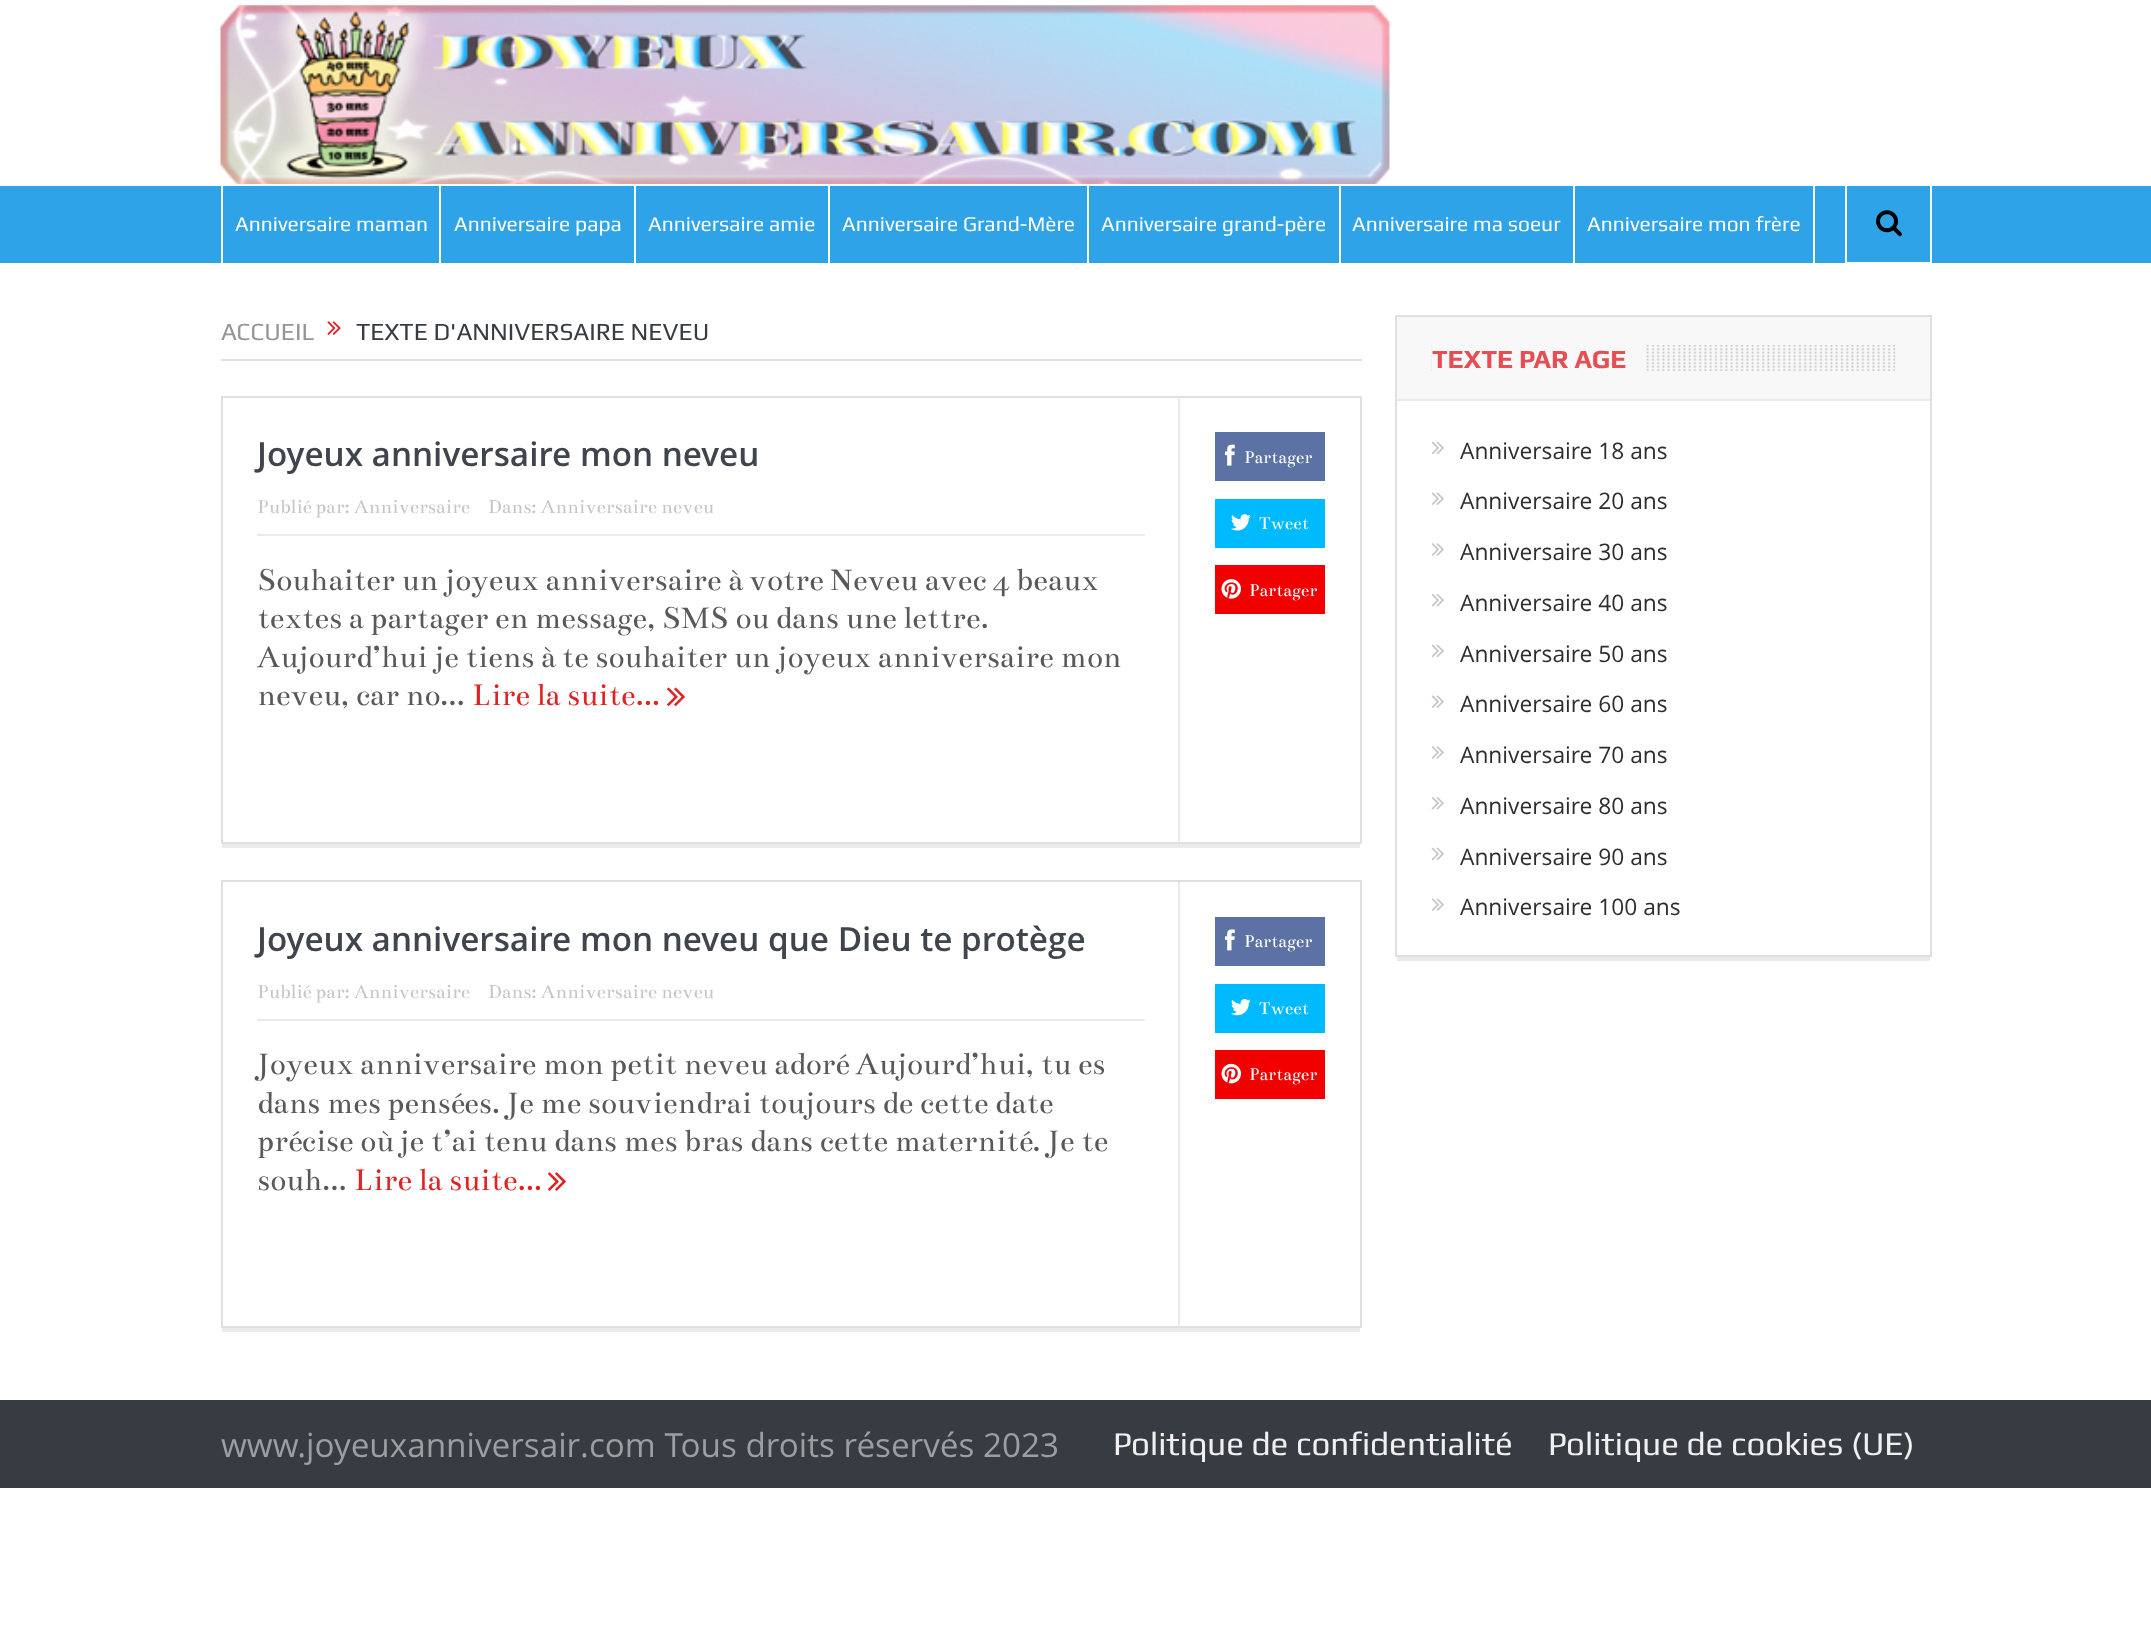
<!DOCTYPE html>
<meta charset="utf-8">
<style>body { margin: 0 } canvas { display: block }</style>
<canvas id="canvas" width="2151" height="1647"></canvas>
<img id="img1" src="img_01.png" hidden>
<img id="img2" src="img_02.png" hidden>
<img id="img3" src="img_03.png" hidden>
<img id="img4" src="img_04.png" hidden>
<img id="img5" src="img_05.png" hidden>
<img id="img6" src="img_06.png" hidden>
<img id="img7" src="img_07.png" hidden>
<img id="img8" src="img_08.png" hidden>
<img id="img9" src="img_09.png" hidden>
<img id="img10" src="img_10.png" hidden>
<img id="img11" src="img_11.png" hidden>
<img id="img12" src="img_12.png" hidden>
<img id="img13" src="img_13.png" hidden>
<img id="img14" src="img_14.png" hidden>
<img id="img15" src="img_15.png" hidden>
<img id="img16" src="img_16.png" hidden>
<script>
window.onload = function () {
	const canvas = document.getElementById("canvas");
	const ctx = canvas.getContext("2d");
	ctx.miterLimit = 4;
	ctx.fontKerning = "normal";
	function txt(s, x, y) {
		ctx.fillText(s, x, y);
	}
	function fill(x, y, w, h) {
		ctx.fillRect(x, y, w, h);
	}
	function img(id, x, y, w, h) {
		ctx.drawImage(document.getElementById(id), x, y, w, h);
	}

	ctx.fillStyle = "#FFFFFF";
	fill(0, 0, 2151, 1647);
	img("img1", 220, 5, 1170, 179);
	ctx.fillStyle = "#2EA3E8";
	fill(0, 186, 2151, 77);
	ctx.fillStyle = "#FFFFFF";
	fill(221, 186, 2, 77);
	fill(439, 186, 2, 77);
	fill(634, 186, 2, 77);
	fill(828, 186, 2, 77);
	fill(1087, 186, 2, 77);
	fill(1339, 186, 2, 77);
	fill(1813, 186, 2, 77);
	fill(1573, 186, 2, 77);
	ctx.strokeStyle = "#FFFFFF";
	ctx.lineWidth = 2;
	ctx.strokeRect(1846, 185, 85, 78);
	img("img2", 1876, 210, 26, 27);
	ctx.fillStyle = "#E0E0E0";
	fill(221, 359, 1141, 2);
	img("img3", 327, 321, 14, 14);
	ctx.strokeStyle = "#E0E0E0";
	ctx.strokeRect(222, 397, 1139, 446);
	ctx.fillStyle = "#EAEAEA";
	fill(257, 534, 888, 2);
	img("img4", 667, 687, 18, 19);
	fill(1178, 397, 2, 445);
	ctx.fillStyle = "#5D72A4";
	fill(1215, 432, 110, 49);
	img("img5", 1225, 444, 10, 22);
	ctx.fillStyle = "#00BAFF";
	fill(1215, 499, 110, 49);
	img("img6", 1231, 514, 20, 17);
	ctx.fillStyle = "#F20000";
	fill(1215, 565, 110, 49);
	img("img7", 1221, 579, 20, 20);
	ctx.fillStyle = "#EBEBEB";
	fill(222, 844, 1138, 4);
	ctx.strokeRect(222, 881, 1139, 446);
	ctx.fillStyle = "#EAEAEA";
	fill(257, 1019, 888, 2);
	img("img8", 548, 1172, 18, 19);
	fill(1178, 882, 2, 445);
	ctx.fillStyle = "#5D72A4";
	fill(1215, 917, 110, 49);
	img("img9", 1225, 929, 10, 22);
	ctx.fillStyle = "#00BAFF";
	fill(1215, 984, 110, 49);
	img("img10", 1231, 999, 20, 17);
	ctx.fillStyle = "#F20000";
	fill(1215, 1050, 110, 49);
	img("img11", 1221, 1063, 20, 21);
	ctx.fillStyle = "#EBEBEB";
	fill(222, 1328, 1138, 4);
	ctx.strokeRect(1396, 316, 535, 640);
	ctx.fillStyle = "#F8F8F8";
	fill(1397, 317, 533, 82);
	ctx.fillStyle = "#EAEAEA";
	fill(1397, 399, 533, 2);
	img("img12", 1431, 345, 465, 26);
	ctx.fillStyle = "#F8F8F8";
	fill(1432, 345, 212, 26);
	img("img13", 1431, 441, 13, 14);
	img("img14", 1431, 492, 13, 13);
	img("img15", 1431, 543, 13, 13);
	img("img16", 1431, 594, 13, 13);
	img("img13", 1431, 644, 13, 14);
	img("img14", 1431, 695, 13, 13);
	img("img15", 1431, 746, 13, 13);
	img("img16", 1431, 797, 13, 13);
	img("img13", 1431, 847, 13, 14);
	img("img14", 1431, 898, 13, 13);
	ctx.fillStyle = "#EBEBEB";
	fill(1397, 957, 533, 4);
	ctx.fillStyle = "#373C43";
	fill(0, 1400, 2151, 88);
	ctx.font = "21px Play";
	ctx.fillStyle = "#FFFFFF";
	txt("Anniversaire maman", 235, 231);
	txt("Anniversaire papa", 454, 231);
	txt("Anniversaire amie", 648, 231);
	txt("Anniversaire Grand-Mère", 842, 231);
	txt("Anniversaire grand-père", 1101, 231);
	txt("Anniversaire ma soeur", 1352, 231);
	txt("Anniversaire mon frère", 1587, 231);
	ctx.font = "24.5px Play";
	ctx.fillStyle = "#959595";
	txt("ACCUEIL", 221, 340);
	ctx.fillStyle = "#373C43";
	txt("TEXTE D'ANNIVERSAIRE NEVEU", 356, 340);
	ctx.font = "600 33.25px Open Sans";
	ctx.fillStyle = "#40454D";
	txt("Joyeux anniversaire mon neveu", 257, 466);
	ctx.font = "21px Bentham";
	ctx.fillStyle = "#C6C6C6";
	txt("Publié par: Anniversaire", 257, 513);
	txt("Dans: Anniversaire neveu", 488, 513);
	ctx.font = "33.25px Bentham";
	ctx.fillStyle = "#595959";
	txt("Souhaiter un joyeux anniversaire à votre Neveu avec 4 beaux", 257, 590);
	txt("textes a partager en message, SMS ou dans une lettre.", 257, 628);
	txt("Aujourd’hui je tiens à te souhaiter un joyeux anniversaire mon", 257, 667);
	txt("neveu, car no...", 257, 705);
	ctx.fillStyle = "#DD2323";
	txt("Lire la suite...", 472, 705);
	ctx.font = "19px Bentham";
	ctx.fillStyle = "#FFFFFF";
	txt("Partager", 1244, 463);
	txt("Tweet", 1259, 529);
	txt("Partager", 1249, 596);
	ctx.font = "600 33.25px Open Sans";
	ctx.fillStyle = "#40454D";
	txt("Joyeux anniversaire mon neveu que Dieu te protège", 257, 951);
	ctx.font = "21px Bentham";
	ctx.fillStyle = "#C6C6C6";
	txt("Publié par: Anniversaire", 257, 998);
	txt("Dans: Anniversaire neveu", 488, 998);
	ctx.font = "33.25px Bentham";
	ctx.fillStyle = "#595959";
	txt("Joyeux anniversaire mon petit neveu adoré Aujourd’hui, tu es", 257, 1074);
	txt("dans mes pensées. Je me souviendrai toujours de cette date", 257, 1113);
	txt("précise où je t’ai tenu dans mes bras dans cette maternité. Je te", 257, 1151);
	txt("souh...", 257, 1190);
	ctx.fillStyle = "#DD2323";
	txt("Lire la suite...", 354, 1190);
	ctx.font = "19px Bentham";
	ctx.fillStyle = "#FFFFFF";
	txt("Partager", 1244, 947);
	txt("Tweet", 1259, 1014);
	txt("Partager", 1249, 1080);
	ctx.font = "bold 26.25px Play";
	ctx.fillStyle = "#E54E53";
	txt("TEXTE PAR AGE", 1432, 368);
	ctx.font = "22.75px Open Sans";
	ctx.fillStyle = "#2D2D2D";
	txt("Anniversaire 18 ans", 1460, 459);
	txt("Anniversaire 20 ans", 1460, 509);
	txt("Anniversaire 30 ans", 1460, 560);
	txt("Anniversaire 40 ans", 1460, 611);
	txt("Anniversaire 50 ans", 1460, 662);
	txt("Anniversaire 60 ans", 1460, 712);
	txt("Anniversaire 70 ans", 1460, 763);
	txt("Anniversaire 80 ans", 1460, 814);
	txt("Anniversaire 90 ans", 1460, 865);
	txt("Anniversaire 100 ans", 1460, 915);
	ctx.font = "33.25px Open Sans";
	ctx.fillStyle = "#9C9EA1";
	txt("www.joyeuxanniversair.com Tous droits réservés 2023", 221, 1457);
	ctx.font = "33.25px Play";
	ctx.fillStyle = "#F0F0F0";
	txt("Politique de confidentialité", 1113, 1455);
	txt("Politique de cookies (UE)", 1548, 1455);
};
</script>
